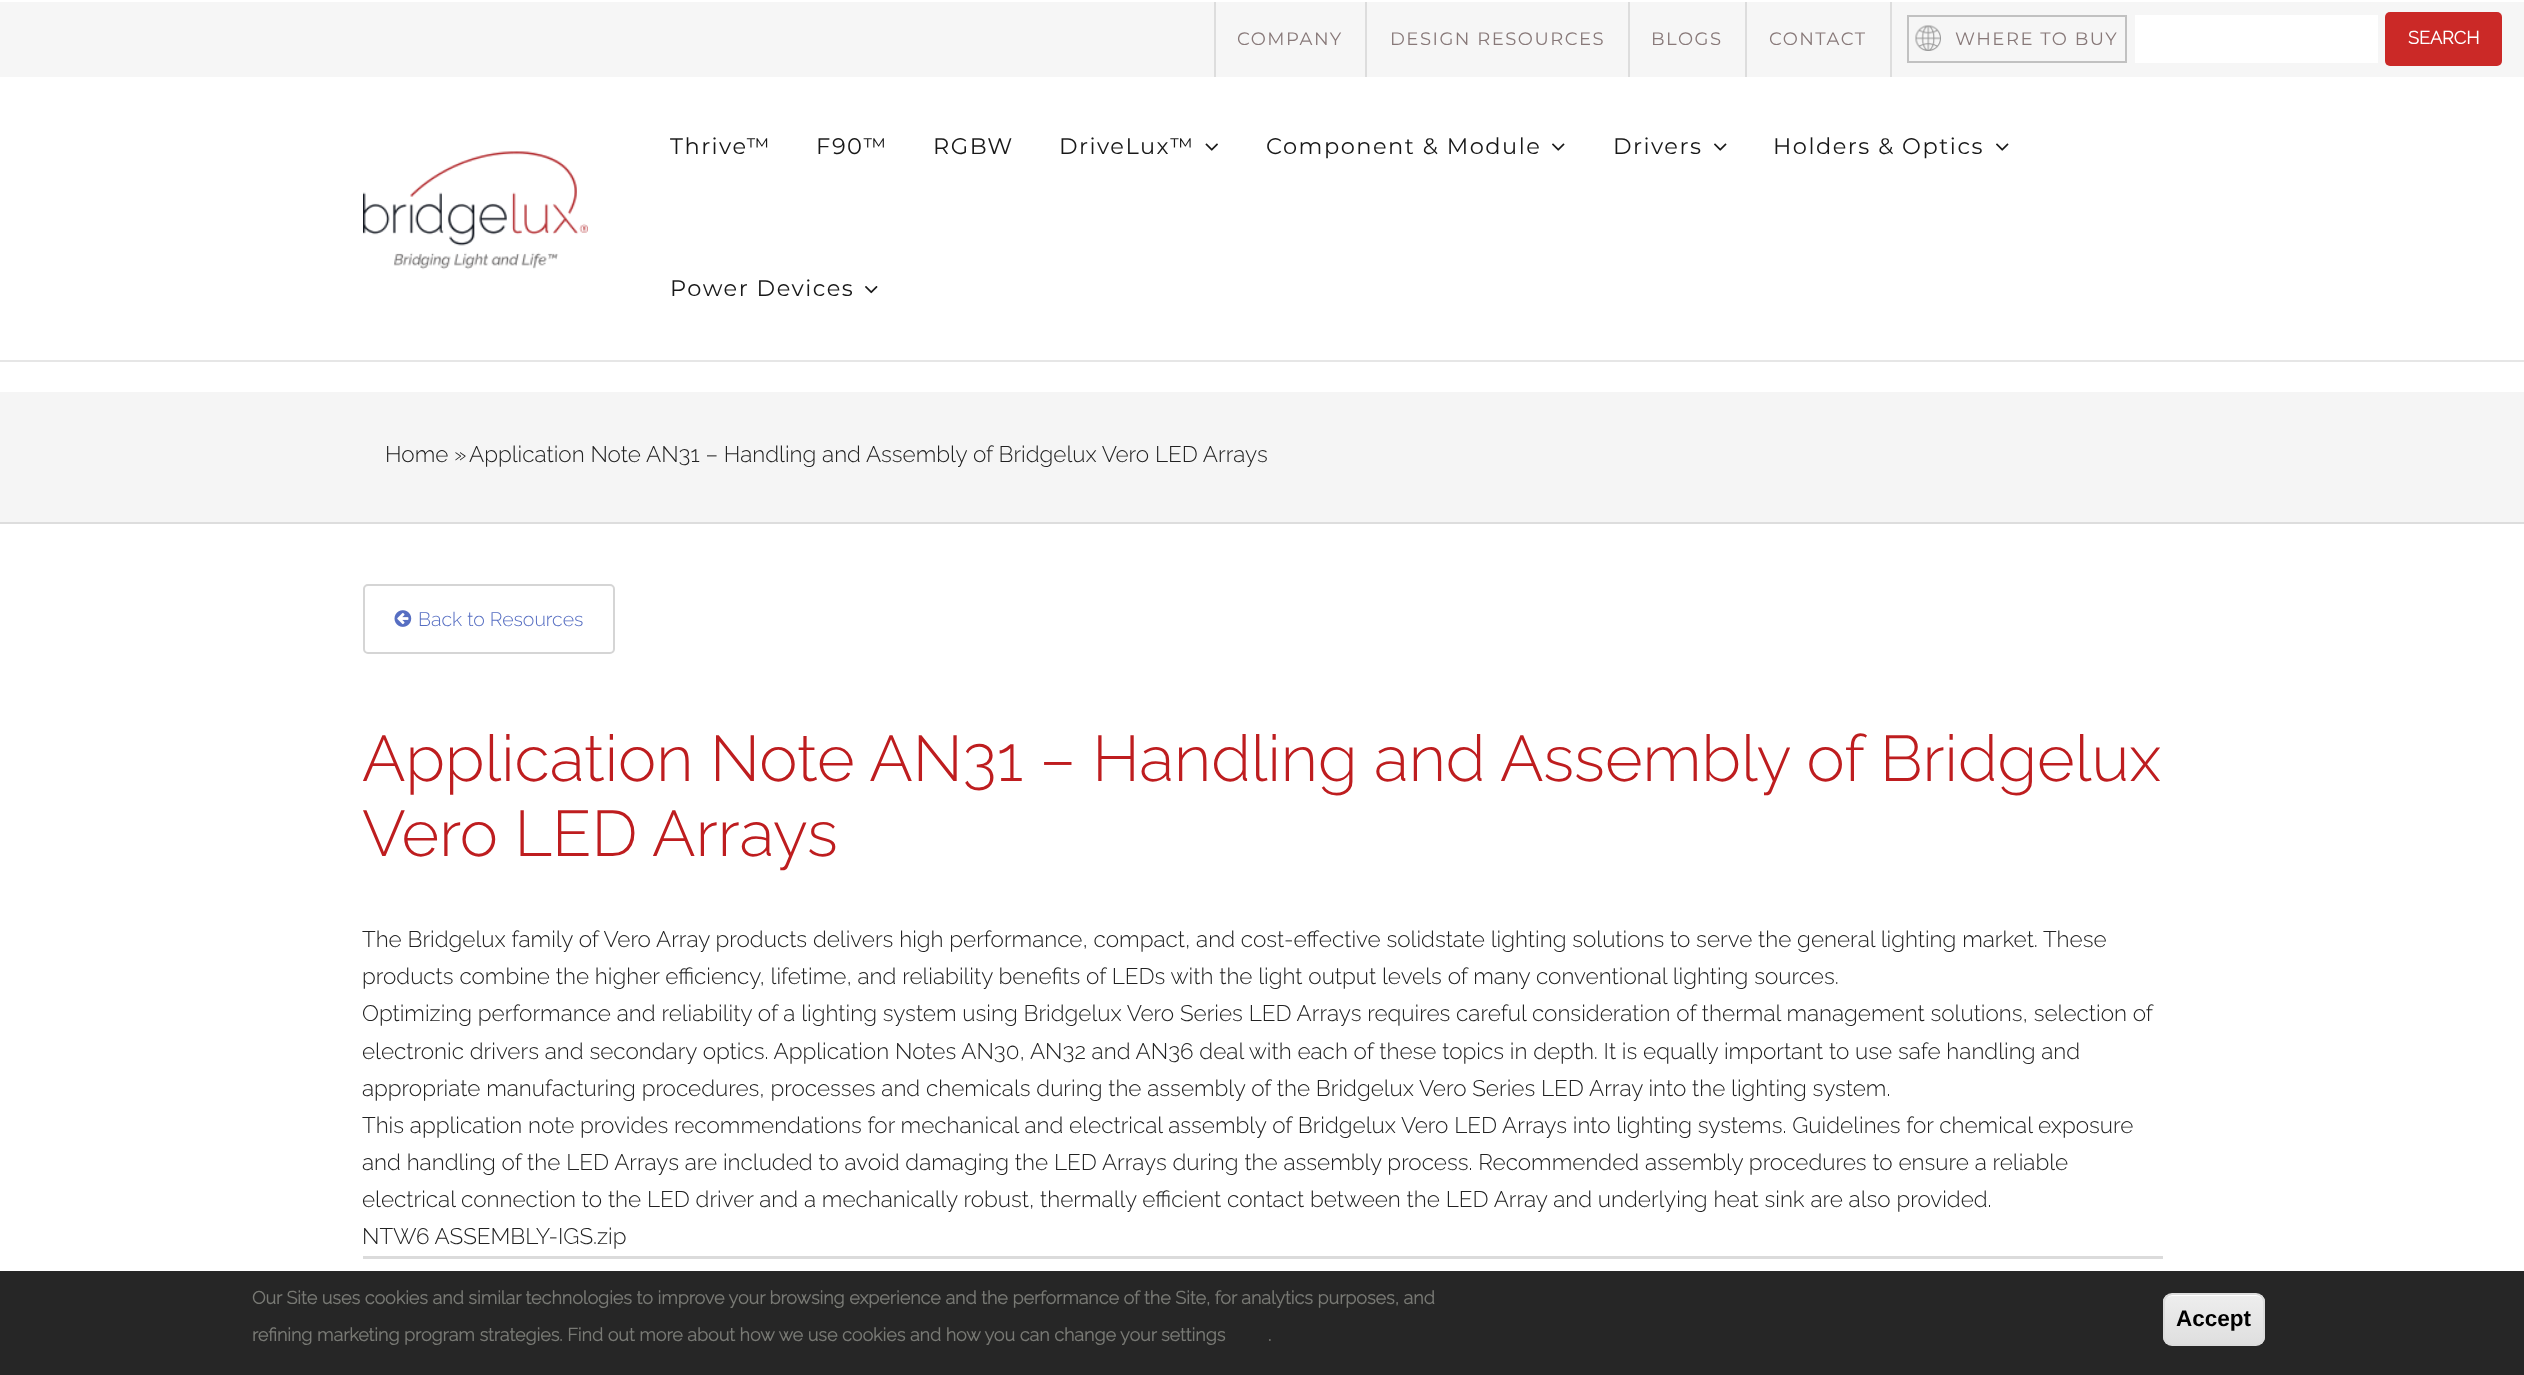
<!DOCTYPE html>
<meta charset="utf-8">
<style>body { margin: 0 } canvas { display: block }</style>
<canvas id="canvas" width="2524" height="1375"></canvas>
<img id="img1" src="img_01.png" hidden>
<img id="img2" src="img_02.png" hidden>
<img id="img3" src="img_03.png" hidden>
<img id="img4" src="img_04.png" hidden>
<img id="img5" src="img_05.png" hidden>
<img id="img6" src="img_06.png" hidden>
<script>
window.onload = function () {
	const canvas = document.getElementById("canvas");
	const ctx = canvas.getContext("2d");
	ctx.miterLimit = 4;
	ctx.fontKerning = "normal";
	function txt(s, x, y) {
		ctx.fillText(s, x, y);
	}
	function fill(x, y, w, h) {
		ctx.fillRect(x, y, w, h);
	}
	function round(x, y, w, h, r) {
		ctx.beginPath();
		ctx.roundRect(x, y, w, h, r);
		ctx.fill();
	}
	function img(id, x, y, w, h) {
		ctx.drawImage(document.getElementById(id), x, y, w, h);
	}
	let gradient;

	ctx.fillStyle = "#FFFFFF";
	fill(0, 0, 2524, 1375);
	ctx.fillStyle = "#F6F6F6";
	fill(0, 2, 2524, 75);
	ctx.fillStyle = "#DDDDDD";
	fill(1365, 2, 2, 75);
	fill(1214, 2, 2, 75);
	fill(1628, 2, 2, 75);
	fill(1745, 2, 2, 75);
	fill(1890, 2, 2, 75);
	ctx.strokeStyle = "#C1C1C1";
	ctx.lineWidth = 2;
	ctx.strokeRect(1908, 16, 218, 46);
	img("img1", 1915, 25, 26, 26);
	ctx.fillStyle = "#FFFFFF";
	fill(2135, 15, 243, 48);
	ctx.fillStyle = "#CB2927";
	round(2385, 12, 117, 54, 5);
	ctx.fillStyle = "#E6E6E6";
	fill(0, 360, 2524, 2);
	img("img2", 363, 151, 225, 119);
	img("img3", 1205, 143, 13, 8);
	img("img4", 1552, 143, 13, 8);
	img("img4", 1714, 143, 13, 8);
	img("img4", 1996, 143, 13, 8);
	img("img5", 865, 286, 13, 8);
	ctx.fillStyle = "#F5F5F5";
	fill(0, 392, 2524, 130);
	ctx.fillStyle = "#DDDDDD";
	fill(0, 522, 2524, 2);
	ctx.beginPath();
	ctx.roundRect(364, 585, 250, 68, 4);
	ctx.strokeStyle = "#D5D5D5";
	ctx.stroke();
	img("img6", 394, 610, 18, 17);
	ctx.fillStyle = "#DBDBDB";
	fill(363, 1256, 1800, 3);
	ctx.fillStyle = "#262626";
	fill(0, 1271, 2524, 104);
	ctx.save();
	ctx.beginPath();
	ctx.roundRect(2163, 1293, 102, 53, 9);
	ctx.clip();
	gradient = ctx.createLinearGradient(2214, 1295, 2214, 1344);
	gradient.addColorStop(0.05, "#EDEDED");
	gradient.addColorStop(1, "#DFDFDF");
	ctx.fillStyle = gradient;
	fill(2163, 1295, 102, 49);
	ctx.restore();
	ctx.fillStyle = "#FFFFFF";
	ctx.beginPath();
	ctx.moveTo(2172, 1296);
	ctx.lineTo(2256, 1296);
	ctx.bezierCurveTo(2260, 1296, 2264, 1299, 2264, 1304);
	ctx.lineTo(2264, 1303);
	ctx.bezierCurveTo(2264, 1299, 2260, 1295, 2256, 1295);
	ctx.lineTo(2173, 1295);
	ctx.bezierCurveTo(2171, 1295, 2168, 1296, 2167, 1298);
	ctx.bezierCurveTo(2168, 1297, 2170, 1296, 2172, 1296);
	ctx.closePath();
	ctx.fill();
	ctx.beginPath();
	ctx.roundRect(2164, 1294, 100, 51, 8);
	ctx.strokeStyle = "#DCDCDC";
	ctx.stroke();
	ctx.letterSpacing = "1.5px";
	ctx.font = "18px Montserrat";
	ctx.fillStyle = "#887979";
	txt("COMPANY", 1237, 45);
	txt("DESIGN RESOURCES", 1390, 45);
	txt("BLOGS", 1651, 45);
	txt("CONTACT", 1769, 45);
	txt("WHERE TO BUY", 1955, 45);
	ctx.letterSpacing = "0px";
	ctx.font = "bold 18px Raleway";
	ctx.fillStyle = "#FFFFFF";
	txt("SEARCH", 2408, 44);
	ctx.letterSpacing = "1.5px";
	ctx.font = "22.5px Montserrat";
	ctx.fillStyle = "#181818";
	txt("Thrive™", 670, 154);
	txt("F90™", 816, 154);
	txt("RGBW", 933, 154);
	txt("DriveLux™", 1059, 154);
	txt("Component & Module", 1266, 154);
	txt("Drivers", 1613, 154);
	txt("Holders & Optics", 1773, 154);
	txt("Power Devices", 670, 296);
	ctx.letterSpacing = "0px";
	ctx.font = "100 22.5px Raleway";
	txt("Home", 385, 462);
	ctx.fillStyle = "#222222";
	txt("»", 454, 462);
	txt("Application Note AN31 – Handling and Assembly of Bridgelux Vero LED Arrays", 469, 462);
	ctx.font = "100 19.5px Raleway";
	ctx.fillStyle = "#566EC2";
	txt("Back to Resources", 418, 626);
	ctx.font = "100 64.5px Raleway";
	ctx.fillStyle = "#BE1D1F";
	txt("Application Note AN31 – Handling and Assembly of Bridgelux", 362, 781);
	txt("Vero LED Arrays", 362, 856);
	ctx.font = "100 22.5px Raleway";
	ctx.fillStyle = "#222222";
	txt("The Bridgelux family of Vero Array products delivers high performance, compact, and cost-effective solidstate lighting solutions to serve the general lighting market. These", 362, 947);
	txt("products combine the higher efficiency, lifetime, and reliability benefits of LEDs with the light output levels of many conventional lighting sources.", 362, 984);
	txt("Optimizing performance and reliability of a lighting system using Bridgelux Vero Series LED Arrays requires careful consideration of thermal management solutions, selection of", 362, 1021);
	txt("electronic drivers and secondary optics. Application Notes AN30, AN32 and AN36 deal with each of these topics in depth. It is equally important to use safe handling and", 362, 1059);
	txt("appropriate manufacturing procedures, processes and chemicals during the assembly of the Bridgelux Vero Series LED Array into the lighting system.", 362, 1096);
	txt("This application note provides recommendations for mechanical and electrical assembly of Bridgelux Vero LED Arrays into lighting systems. Guidelines for chemical exposure", 362, 1133);
	txt("and handling of the LED Arrays are included to avoid damaging the LED Arrays during the assembly process. Recommended assembly procedures to ensure a reliable", 362, 1170);
	txt("electrical connection to the LED driver and a mechanically robust, thermally efficient contact between the LED Array and underlying heat sink are also provided.", 362, 1207);
	txt("NTW6 ASSEMBLY-IGS.zip", 362, 1244);
	ctx.font = "bold 18px Raleway";
	ctx.fillStyle = "#787974";
	txt("Our Site uses cookies and similar technologies to improve your browsing experience and the performance of the Site, for analytics purposes, and", 252, 1304);
	txt("refining marketing program strategies. Find out more about how we use cookies and how you can change your settings", 252, 1341);
	txt(".", 1268, 1341);
	ctx.font = "bold 22.5px Liberation Sans";
	ctx.fillStyle = "#000000";
	txt("Accept", 2176, 1326);
};
</script>
